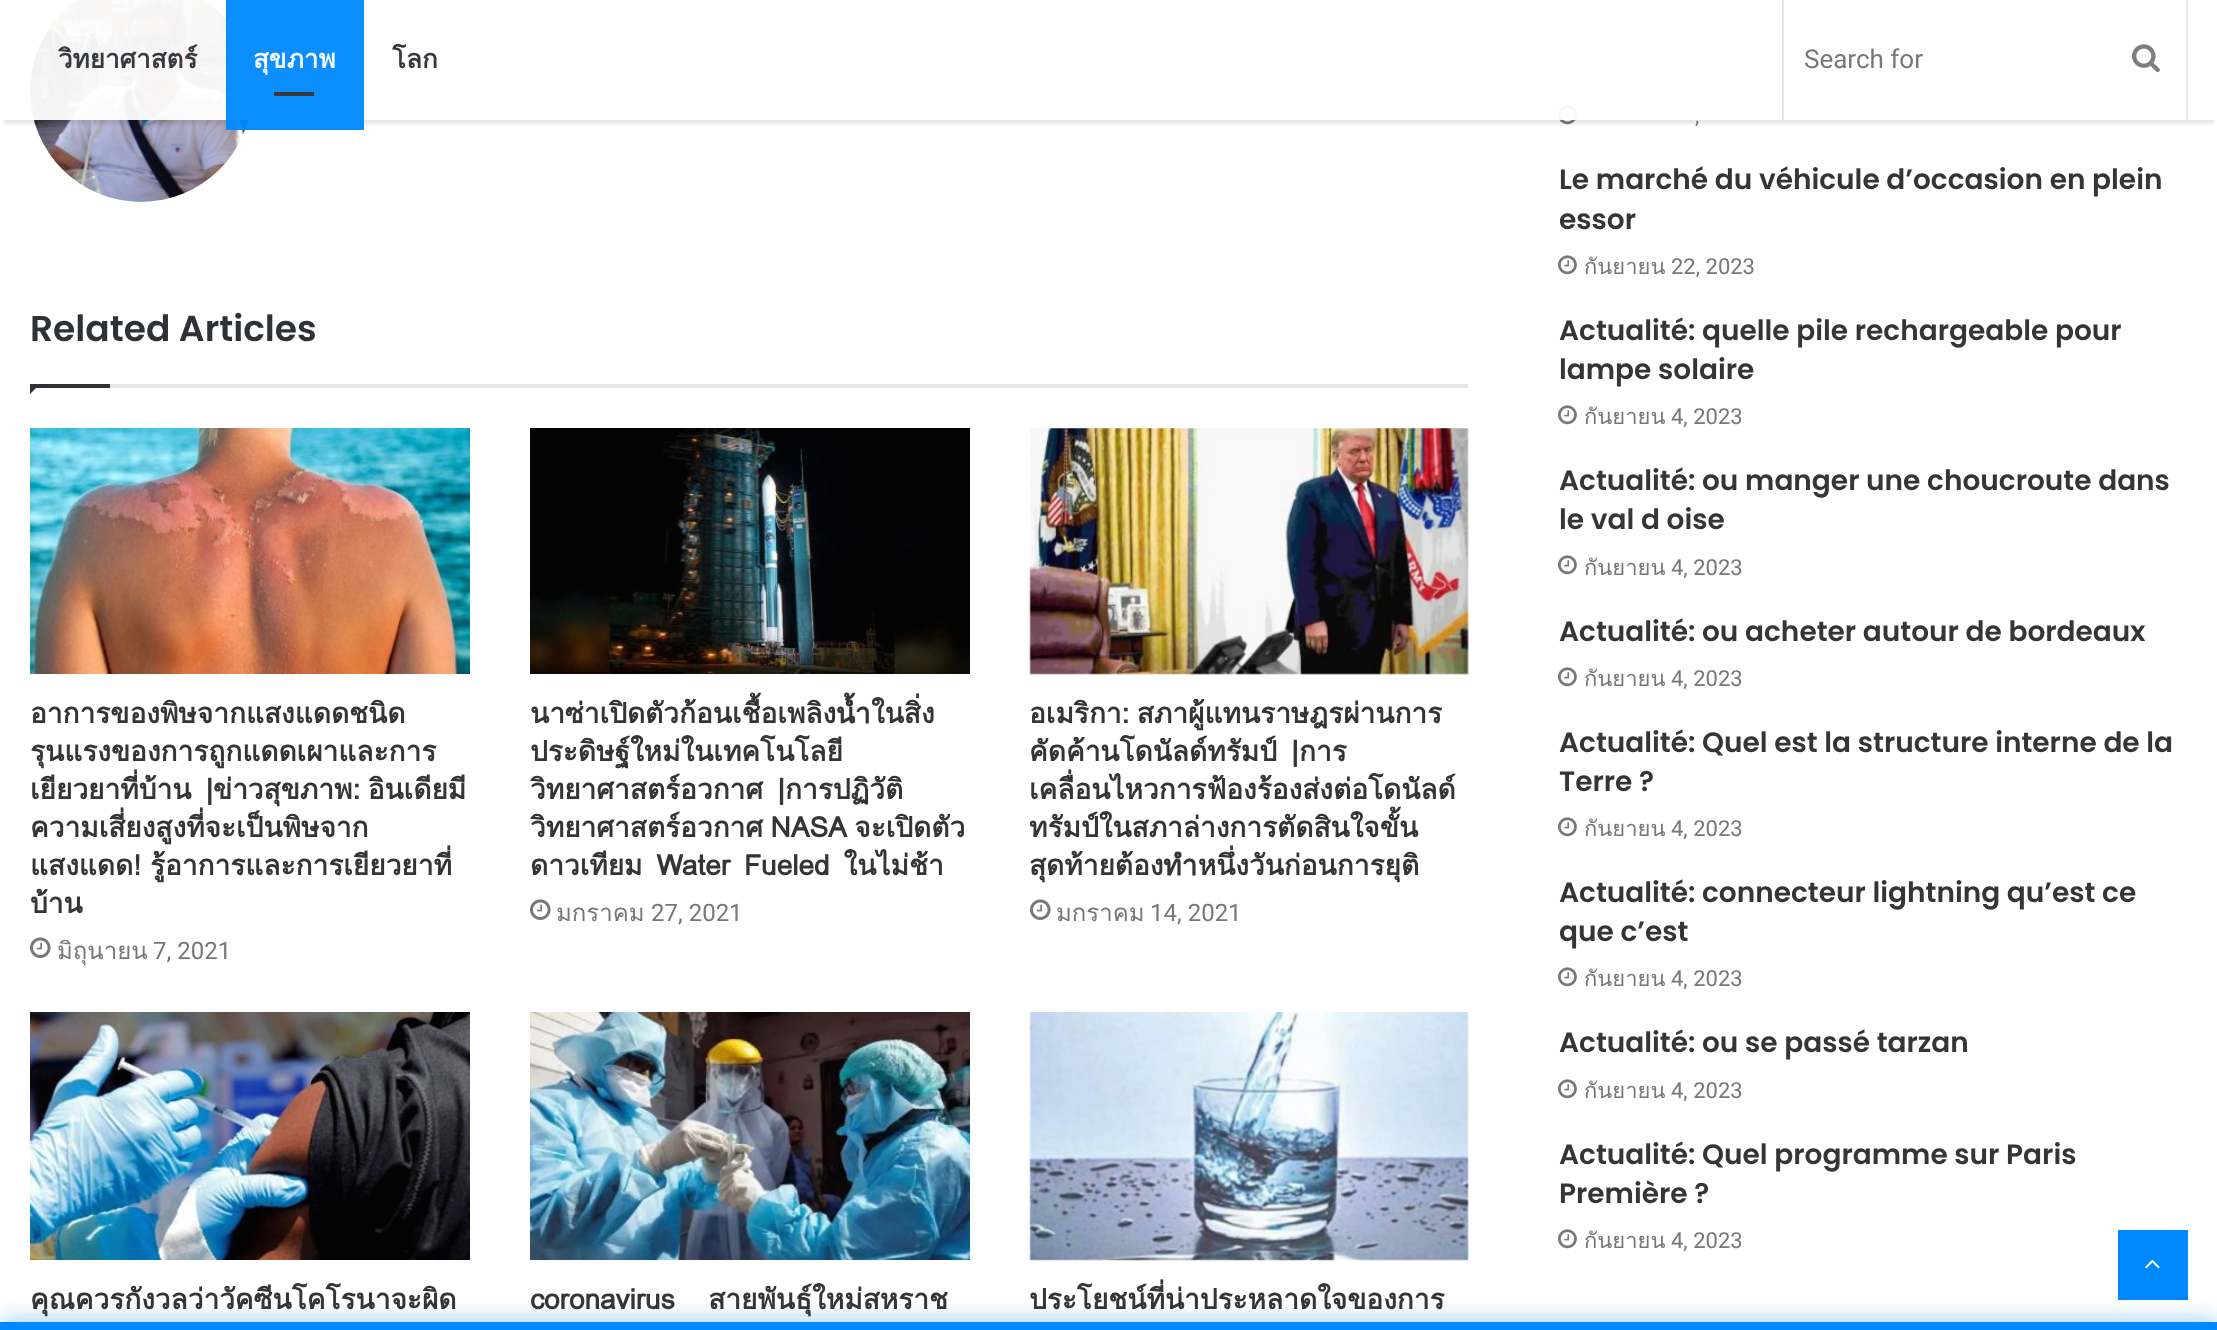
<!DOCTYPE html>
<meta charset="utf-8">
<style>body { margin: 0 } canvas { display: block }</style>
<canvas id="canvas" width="2217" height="1330"></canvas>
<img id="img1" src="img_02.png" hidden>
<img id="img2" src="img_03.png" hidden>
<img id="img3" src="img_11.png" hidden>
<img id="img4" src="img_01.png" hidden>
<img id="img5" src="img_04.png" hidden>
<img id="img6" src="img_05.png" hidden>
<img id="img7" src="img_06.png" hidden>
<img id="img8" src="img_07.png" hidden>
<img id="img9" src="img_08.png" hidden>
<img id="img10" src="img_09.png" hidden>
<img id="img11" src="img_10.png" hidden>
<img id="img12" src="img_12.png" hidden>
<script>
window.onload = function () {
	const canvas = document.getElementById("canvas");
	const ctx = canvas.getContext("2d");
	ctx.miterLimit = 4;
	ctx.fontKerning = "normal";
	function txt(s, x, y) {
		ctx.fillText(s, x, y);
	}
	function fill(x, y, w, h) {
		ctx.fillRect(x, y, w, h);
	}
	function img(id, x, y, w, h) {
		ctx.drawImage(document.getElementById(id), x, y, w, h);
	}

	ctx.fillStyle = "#FFFFFF";
	fill(0, 0, 2217, 1330);
	img("img1", 30, 0, 222, 202);
	img("img2", 302, 62, 28, 22);
	img("img3", 1558, 105, 19, 20);
	ctx.save();
	ctx.beginPath();
	ctx.rect(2, 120, 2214, 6);
	ctx.clip();
	ctx.fillStyle = "rgba(0, 0, 0, 0.1)";
	ctx.filter = "blur(2px)";
	ctx.beginPath();
	ctx.rect(4, 12, 2210, 112);
	ctx.fill();
	ctx.filter = "none";
	ctx.restore();
	ctx.fillStyle = "rgba(255, 255, 255, 0.95)";
	fill(30, 0, 1547, 120);
	ctx.fillStyle = "rgba(0, 136, 255, 0.95)";
	fill(226, 120, 138, 10);
	fill(226, 0, 138, 120);
	ctx.fillStyle = "#37393E";
	fill(274, 92, 40, 4);
	ctx.fillStyle = "#E7E7E7";
	fill(2186, 0, 2, 120);
	ctx.fillStyle = "rgba(0, 0, 0, 0.1)";
	fill(1782, 0, 2, 120);
	img("img4", 2132, 44, 28, 29);
	ctx.fillStyle = "#E6E6E6";
	fill(110, 384, 1358, 4);
	ctx.fillStyle = "#2E3136";
	ctx.beginPath();
	ctx.moveTo(30, 384);
	ctx.lineTo(40, 384);
	ctx.lineTo(30, 394);
	ctx.closePath();
	ctx.fill();
	fill(30, 384, 80, 4);
	img("img5", 30, 428, 440, 246);
	img("img6", 30, 937, 21, 21);
	img("img7", 530, 428, 440, 246);
	img("img6", 530, 899, 21, 21);
	img("img8", 1029, 428, 440, 247);
	img("img6", 1030, 899, 21, 21);
	img("img9", 30, 1012, 440, 248);
	img("img10", 530, 1012, 440, 248);
	img("img11", 1029, 1012, 440, 249);
	img("img3", 1558, 255, 19, 20);
	img("img3", 1558, 405, 19, 20);
	img("img3", 1558, 555, 19, 20);
	img("img3", 1558, 667, 19, 20);
	img("img3", 1558, 817, 19, 20);
	img("img3", 1558, 967, 19, 20);
	img("img3", 1558, 1079, 19, 20);
	img("img3", 1558, 1229, 19, 20);
	ctx.fillStyle = "#0088FF";
	fill(2118, 1230, 70, 70);
	img("img12", 2145, 1259, 15, 10);
	ctx.fillStyle = "rgba(0, 136, 255, 0.7)";
	ctx.filter = "blur(10px)";
	ctx.beginPath();
	ctx.rect(0, 1322, 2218, 8);
	ctx.fill();
	ctx.filter = "none";
	ctx.fillStyle = "#0088FF";
	fill(0, 1322, 2217, 8);
	ctx.font = "bold 26px Loma";
	ctx.fillStyle = "#36393E";
	txt("วิทยาศาสตร์", 58, 68);
	ctx.fillStyle = "#F3F9FF";
	txt("สุขภาพ", 253, 68);
	ctx.fillStyle = "#36393E";
	txt("โลก", 392, 68);
	ctx.font = "26px Roboto";
	ctx.fillStyle = "#777777";
	txt("Search for", 1804, 68);
	ctx.font = "600 36px Poppins";
	ctx.fillStyle = "#2E3136";
	txt("Related Articles", 30, 341);
	ctx.font = "bold 28px Loma";
	ctx.fillStyle = "#353535";
	txt("อาการของพิษจากแสงแดดชนิด", 30, 723);
	txt("รุนแรงของการถูกแดดเผาและการ", 30, 761);
	ctx.wordSpacing = "5px";
	txt("เยียวยาที่บ้าน |", 30, 799);
	ctx.wordSpacing = "-2px";
	txt("ข่าวสุขภาพ: อินเดียมี", 213, 799);
	ctx.wordSpacing = "0px";
	txt("ความเสี่ยงสูงที่จะเป็นพิษจาก", 30, 837);
	txt("แสงแดด!", 30, 875);
	txt("รู้อาการและการเยียวยาที่", 150, 875);
	txt("บ้าน", 30, 913);
	ctx.font = "24px Loma";
	ctx.fillStyle = "#777777";
	txt("มิถุนายน", 57, 959);
	ctx.font = "24px Roboto";
	txt("7, 2021", 153, 959);
	ctx.font = "bold 28px Loma";
	ctx.fillStyle = "#353535";
	txt("นาซ่าเปิดตัวก้อนเชื้อเพลิงน้ำในสิ่ง", 530, 723);
	txt("ประดิษฐ์ใหม่ในเทคโนโลยี", 530, 761);
	ctx.wordSpacing = "5px";
	txt("วิทยาศาสตร์อวกาศ |", 530, 799);
	ctx.wordSpacing = "0px";
	txt("การปฏิวัติ", 785, 799);
	ctx.wordSpacing = "-2px";
	txt("วิทยาศาสตร์อวกาศ NASA จะเปิดตัว", 530, 837);
	ctx.wordSpacing = "4.5px";
	txt("ดาวเทียม Water Fueled ในไม่ช้า", 530, 875);
	ctx.wordSpacing = "0px";
	ctx.font = "24px Loma";
	ctx.fillStyle = "#777777";
	txt("มกราคม", 556, 921);
	ctx.font = "24px Roboto";
	txt("27, 2021", 651, 921);
	ctx.wordSpacing = "-2px";
	ctx.font = "bold 28px Loma";
	ctx.fillStyle = "#353535";
	txt("อเมริกา: สภาผู้แทนราษฎรผ่านการ", 1029, 723);
	ctx.wordSpacing = "5px";
	txt("คัดค้านโดนัลด์ทรัมป์ |", 1029, 761);
	ctx.wordSpacing = "0px";
	txt("การ", 1299, 761);
	txt("เคลื่อนไหวการฟ้องร้องส่งต่อโดนัลด์", 1029, 799);
	txt("ทรัมป์ในสภาล่างการตัดสินใจขั้น", 1029, 837);
	txt("สุดท้ายต้องทำหนึ่งวันก่อนการยุติ", 1029, 875);
	ctx.font = "24px Loma";
	ctx.fillStyle = "#777777";
	txt("มกราคม", 1056, 921);
	ctx.font = "24px Roboto";
	txt("14, 2021", 1150, 921);
	ctx.font = "bold 28px Loma";
	ctx.fillStyle = "#353535";
	txt("คุณควรกังวลว่าวัคซีนโคโรนาจะผิด", 30, 1309);
	ctx.wordSpacing = "24px";
	txt("coronavirus สายพันธุ์ใหม่สหราช", 530, 1309);
	ctx.wordSpacing = "0px";
	txt("ประโยชน์ที่น่าประหลาดใจของการ", 1029, 1309);
	ctx.font = "22px Roboto";
	ctx.fillStyle = "#777777";
	txt(",", 1695, 123);
	ctx.font = "600 28px Poppins";
	ctx.fillStyle = "#353535";
	txt("Le marché du véhicule d’occasion en plein", 1559, 189);
	txt("essor", 1559, 229);
	ctx.font = "22px Loma";
	ctx.fillStyle = "#777777";
	txt("กันยายน", 1584, 274);
	ctx.font = "22px Roboto";
	txt("22, 2023", 1671, 274);
	ctx.font = "600 28px Poppins";
	ctx.fillStyle = "#353535";
	txt("Actualité: quelle pile rechargeable pour", 1559, 340);
	txt("lampe solaire", 1559, 379);
	ctx.font = "22px Loma";
	ctx.fillStyle = "#777777";
	txt("กันยายน", 1584, 424);
	ctx.font = "22px Roboto";
	txt("4, 2023", 1671, 424);
	ctx.font = "600 28px Poppins";
	ctx.fillStyle = "#353535";
	txt("Actualité: ou manger une choucroute dans", 1559, 490);
	txt("le val d oise", 1559, 529);
	ctx.font = "22px Loma";
	ctx.fillStyle = "#777777";
	txt("กันยายน", 1584, 575);
	ctx.font = "22px Roboto";
	txt("4, 2023", 1671, 575);
	ctx.font = "600 28px Poppins";
	ctx.fillStyle = "#353535";
	txt("Actualité: ou acheter autour de bordeaux", 1559, 641);
	ctx.font = "22px Loma";
	ctx.fillStyle = "#777777";
	txt("กันยายน", 1584, 686);
	ctx.font = "22px Roboto";
	txt("4, 2023", 1671, 686);
	ctx.font = "600 28px Poppins";
	ctx.fillStyle = "#353535";
	txt("Actualité: Quel est la structure interne de la", 1559, 752);
	txt("Terre ?", 1559, 791);
	ctx.font = "22px Loma";
	ctx.fillStyle = "#777777";
	txt("กันยายน", 1584, 836);
	ctx.font = "22px Roboto";
	txt("4, 2023", 1671, 836);
	ctx.font = "600 28px Poppins";
	ctx.fillStyle = "#353535";
	txt("Actualité: connecteur lightning qu’est ce", 1559, 902);
	txt("que c’est", 1559, 941);
	ctx.font = "22px Loma";
	ctx.fillStyle = "#777777";
	txt("กันยายน", 1584, 986);
	ctx.font = "22px Roboto";
	txt("4, 2023", 1671, 986);
	ctx.font = "600 28px Poppins";
	ctx.fillStyle = "#353535";
	txt("Actualité: ou se passé tarzan", 1559, 1052);
	ctx.font = "22px Loma";
	ctx.fillStyle = "#777777";
	txt("กันยายน", 1584, 1098);
	ctx.font = "22px Roboto";
	txt("4, 2023", 1671, 1098);
	ctx.font = "600 28px Poppins";
	ctx.fillStyle = "#353535";
	txt("Actualité: Quel programme sur Paris", 1559, 1164);
	txt("Première ?", 1559, 1203);
	ctx.font = "22px Loma";
	ctx.fillStyle = "#777777";
	txt("กันยายน", 1584, 1248);
	ctx.font = "22px Roboto";
	txt("4, 2023", 1671, 1248);
};
</script>
